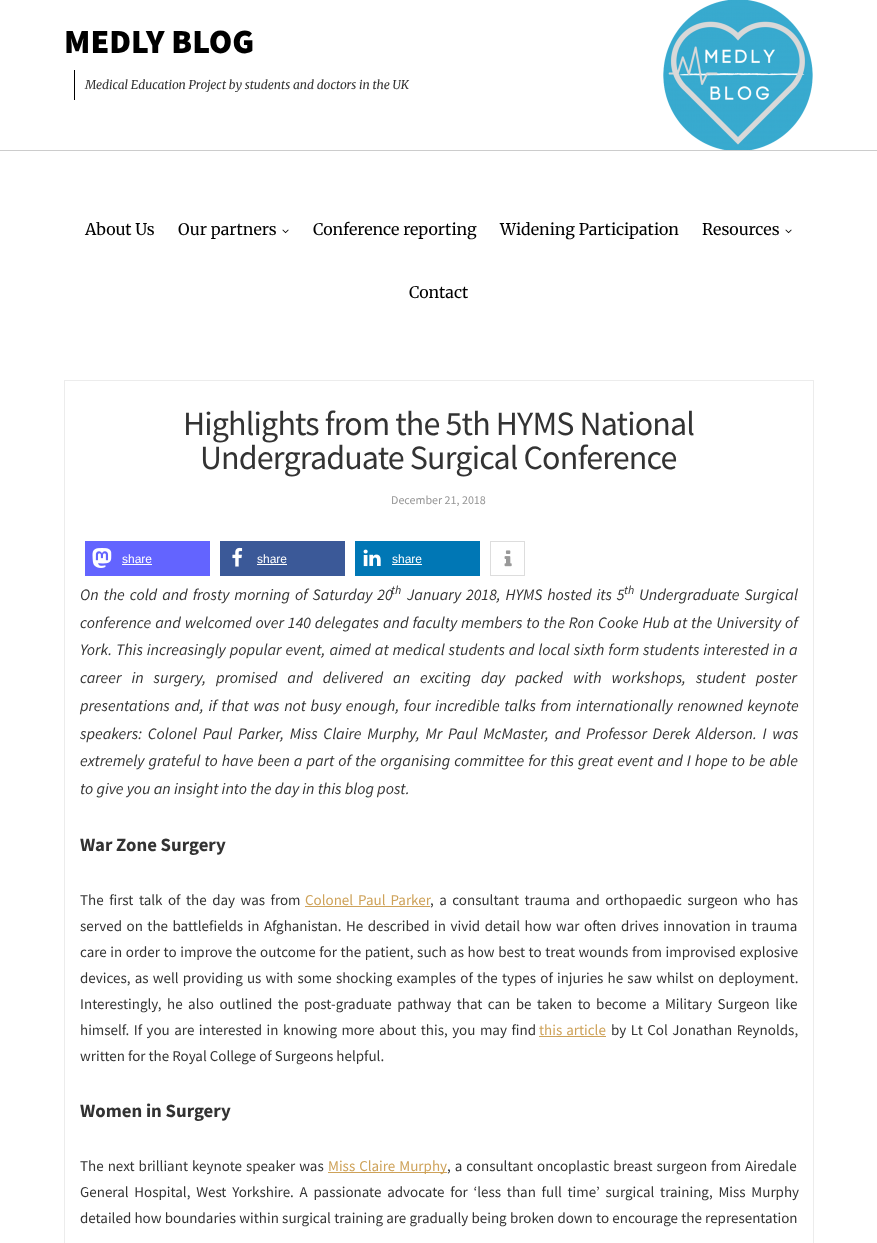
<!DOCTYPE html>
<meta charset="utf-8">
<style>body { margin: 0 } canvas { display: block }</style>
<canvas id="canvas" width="877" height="1243"></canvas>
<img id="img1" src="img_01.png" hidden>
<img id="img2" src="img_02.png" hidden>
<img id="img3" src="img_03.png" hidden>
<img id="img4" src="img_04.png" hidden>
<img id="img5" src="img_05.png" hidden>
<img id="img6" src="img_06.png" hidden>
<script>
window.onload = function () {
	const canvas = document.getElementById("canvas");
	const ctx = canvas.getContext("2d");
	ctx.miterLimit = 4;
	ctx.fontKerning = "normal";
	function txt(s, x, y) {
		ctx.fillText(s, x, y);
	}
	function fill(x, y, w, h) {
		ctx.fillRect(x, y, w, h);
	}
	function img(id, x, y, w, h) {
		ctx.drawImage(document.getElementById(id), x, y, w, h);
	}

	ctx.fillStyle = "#FFFFFF";
	fill(0, 0, 877, 1243);
	ctx.fillStyle = "#CCCCCC";
	fill(0, 150, 877, 1);
	ctx.fillStyle = "#000000";
	fill(74, 70, 1, 30);
	img("img1", 663, 0, 150, 150);
	img("img2", 282, 229, 7, 5);
	img("img2", 785, 229, 7, 5);
	ctx.strokeStyle = "#ECECEC";
	ctx.strokeRect(64.5, 380.5, 749, 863);
	ctx.fillStyle = "#6364FF";
	fill(85, 541, 125, 35);
	img("img3", 92, 548, 20, 20);
	ctx.fillStyle = "#FFFFFF";
	fill(122, 564, 30, 1);
	ctx.fillStyle = "#3B5998";
	fill(220, 541, 125, 35);
	img("img4", 232, 547, 11, 20);
	ctx.fillStyle = "#FFFFFF";
	fill(257, 564, 30, 1);
	ctx.fillStyle = "#0077B5";
	fill(355, 541, 125, 35);
	img("img5", 363, 549, 18, 18);
	ctx.fillStyle = "#FFFFFF";
	fill(392, 564, 30, 1);
	ctx.strokeStyle = "#DDDDDD";
	ctx.strokeRect(490.5, 541.5, 34, 34);
	img("img6", 504, 550, 8, 17);
	ctx.fillStyle = "#CEA259";
	fill(305, 906, 125, 1);
	fill(539, 1036, 67, 1);
	fill(328, 1172, 119, 1);
	ctx.font = "900 34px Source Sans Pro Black";
	ctx.fillStyle = "#000000";
	txt("MEDLY BLOG", 64, 53);
	ctx.font = "italic 12px Merriweather";
	ctx.fillStyle = "#333333";
	txt("Medical Education Project by students and doctors in the UK", 85, 89);
	ctx.font = "16px Merriweather";
	ctx.fillStyle = "#000000";
	txt("About Us", 85, 235);
	txt("Our partners", 178, 235);
	txt("Conference reporting", 313, 235);
	txt("Widening Participation", 500, 235);
	txt("Resources", 702, 235);
	txt("Contact", 409, 298);
	ctx.letterSpacing = "-0.85px";
	ctx.font = "34px Source Sans Pro";
	ctx.fillStyle = "#333333";
	txt("Highlights from the 5th HYMS National", 183, 435);
	txt("Undergraduate Surgical Conference", 200, 469);
	ctx.letterSpacing = "0px";
	ctx.font = "12px Source Sans Pro";
	ctx.fillStyle = "#969696";
	txt("December 21, 2018", 391, 504);
	ctx.font = "12px Liberation Sans";
	ctx.fillStyle = "#FFFFFF";
	txt("share", 122, 563);
	txt("share", 257, 563);
	txt("share", 392, 563);
	ctx.wordSpacing = "1.75px";
	ctx.font = "italic 16px Source Sans Pro";
	ctx.fillStyle = "#333333";
	txt("On the cold and frosty morning of Saturday 20", 80, 600);
	ctx.wordSpacing = "0px";
	ctx.font = "italic 12px Source Sans Pro";
	txt("th", 391, 594);
	ctx.wordSpacing = "1.75px";
	ctx.font = "italic 16px Source Sans Pro";
	txt("January 2018, HYMS hosted its 5", 407, 600);
	ctx.wordSpacing = "0px";
	ctx.font = "italic 12px Source Sans Pro";
	txt("th", 624, 594);
	ctx.wordSpacing = "1.75px";
	ctx.font = "italic 16px Source Sans Pro";
	txt("Undergraduate Surgical", 639, 600);
	ctx.wordSpacing = "0.75px";
	txt("conference and welcomed over 140 delegates and faculty members to the Ron Cooke Hub at the University of", 80, 628);
	txt("York. This increasingly popular event, aimed at medical students and local sixth form students interested in a", 80, 655);
	ctx.wordSpacing = "6.75px";
	txt("career in surgery, promised and delivered an exciting day packed with workshops, student poster", 80, 683);
	ctx.wordSpacing = "1.4px";
	txt("presentations and, if that was not busy enough, four incredible talks from internationally renowned keynote", 80, 711);
	ctx.wordSpacing = "2.5px";
	txt("speakers: Colonel Paul Parker, Miss Claire Murphy, Mr Paul McMaster, and Professor Derek Alderson. I was", 80, 739);
	ctx.wordSpacing = "0.8px";
	txt("extremely grateful to have been a part of the organising committee for this great event and I hope to be able", 80, 766);
	ctx.wordSpacing = "0px";
	txt("to give you an insight into the day in this blog post.", 80, 794);
	ctx.font = "bold 18.75px Source Sans Pro";
	txt("War Zone Surgery", 80, 851);
	ctx.wordSpacing = "2.5px";
	ctx.font = "15px Source Sans Pro";
	txt("The first talk of the day was from", 80, 905);
	ctx.wordSpacing = "2px";
	ctx.fillStyle = "#CEA259";
	txt("Colonel Paul Parker", 305, 905);
	ctx.wordSpacing = "2.5px";
	ctx.fillStyle = "#333333";
	txt(", a consultant trauma and orthopaedic surgeon who has", 430, 905);
	ctx.wordSpacing = "1.5px";
	txt("served on the battlefields in Afghanistan. He described in vivid detail how war often drives innovation in trauma", 80, 931);
	ctx.wordSpacing = "0.6px";
	txt("care in order to improve the outcome for the patient, such as how best to treat wounds from improvised explosive", 80, 957);
	ctx.wordSpacing = "1.2px";
	txt("devices, as well providing us with some shocking examples of the types of injuries he saw whilst on deployment.", 80, 983);
	ctx.wordSpacing = "2.5px";
	txt("Interestingly, he also outlined the post-graduate pathway that can be taken to become a Military Surgeon like", 80, 1009);
	ctx.wordSpacing = "1.5px";
	txt("himself. If you are interested in knowing more about this, you may find", 80, 1035);
	ctx.wordSpacing = "1px";
	ctx.fillStyle = "#CEA259";
	txt("this article", 539, 1035);
	ctx.wordSpacing = "1.5px";
	ctx.fillStyle = "#333333";
	txt("by Lt Col Jonathan Reynolds,", 611, 1035);
	ctx.wordSpacing = "0px";
	txt("written for the Royal College of Surgeons helpful.", 80, 1061);
	ctx.font = "bold 18.75px Source Sans Pro";
	txt("Women in Surgery", 80, 1117);
	ctx.wordSpacing = "1px";
	ctx.font = "15px Source Sans Pro";
	txt("The next brilliant keynote speaker was", 80, 1171);
	ctx.fillStyle = "#CEA259";
	txt("Miss Claire Murphy", 328, 1171);
	ctx.fillStyle = "#333333";
	txt(", a consultant oncoplastic breast surgeon from Airedale", 447, 1171);
	ctx.wordSpacing = "2.75px";
	txt("General Hospital, West Yorkshire. A passionate advocate for ‘less than full time’ surgical training, Miss Murphy", 80, 1197);
	ctx.wordSpacing = "0.25px";
	txt("detailed how boundaries within surgical training are gradually being broken down to encourage the representation", 80, 1223);
};
</script>
